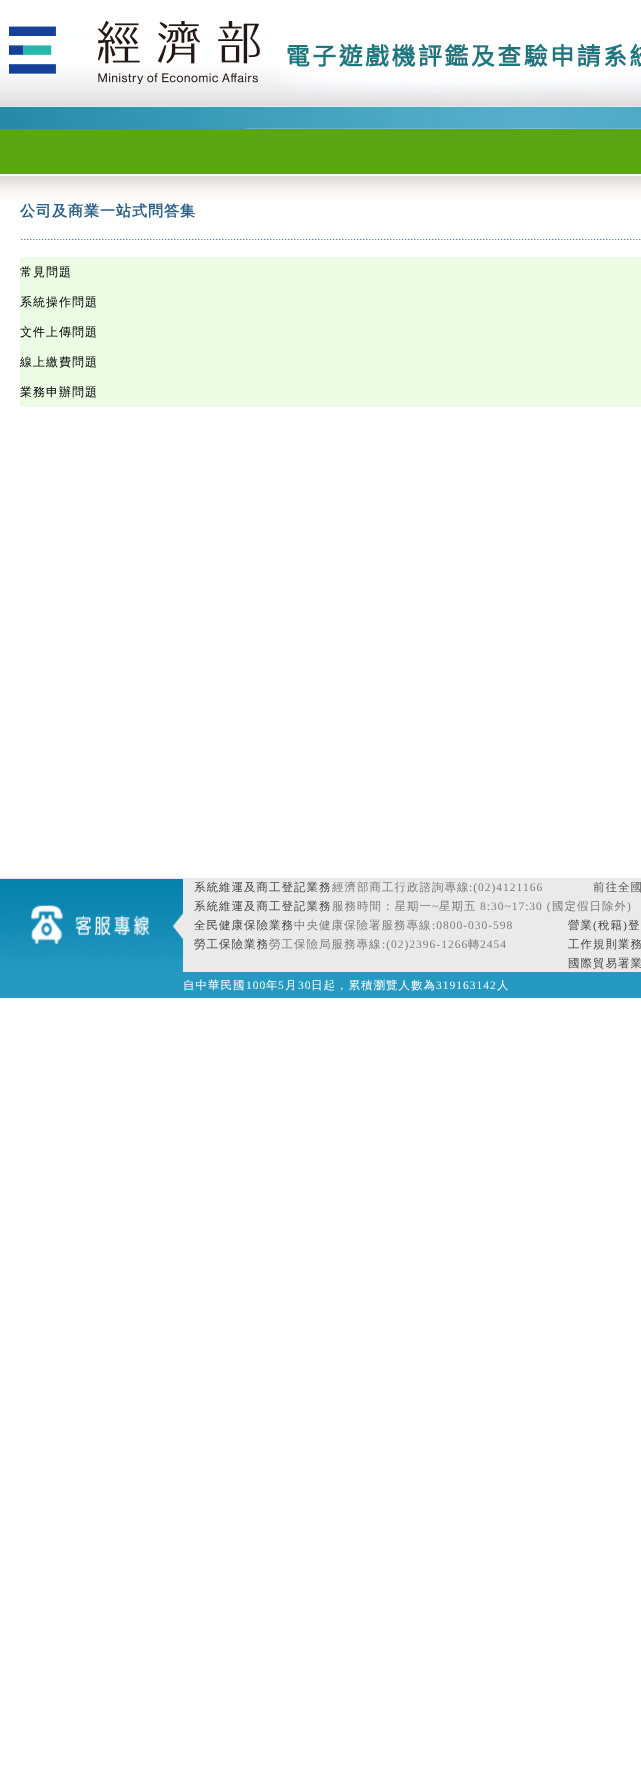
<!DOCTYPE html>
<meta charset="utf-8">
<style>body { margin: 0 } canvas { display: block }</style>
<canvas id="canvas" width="641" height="1776"></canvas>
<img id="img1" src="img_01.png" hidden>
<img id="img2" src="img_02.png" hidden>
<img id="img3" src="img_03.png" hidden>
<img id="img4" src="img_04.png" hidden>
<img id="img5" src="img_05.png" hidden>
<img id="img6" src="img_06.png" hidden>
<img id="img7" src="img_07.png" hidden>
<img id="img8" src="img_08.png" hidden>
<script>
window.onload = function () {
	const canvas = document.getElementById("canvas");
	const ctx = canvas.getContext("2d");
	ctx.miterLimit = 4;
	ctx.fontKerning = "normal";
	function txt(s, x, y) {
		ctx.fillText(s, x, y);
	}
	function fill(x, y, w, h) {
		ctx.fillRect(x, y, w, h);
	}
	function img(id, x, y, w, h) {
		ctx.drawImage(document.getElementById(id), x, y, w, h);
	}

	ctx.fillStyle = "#FFFFFF";
	fill(0, 0, 641, 1776);
	img("img1", 0, 87, 641, 20);
	img("img2", 0, 0, 270, 87);
	img("img3", 0, 106, 270, 23);
	img("img4", 270, 0, 371, 105);
	img("img5", 270, 106, 371, 23);
	img("img6", 0, 129, 641, 71);
	img("img7", 21, 239, 620, 1);
	ctx.fillStyle = "#EBFBE4";
	fill(20, 257, 621, 150);
	ctx.fillStyle = "#2599C0";
	fill(0, 972, 641, 26);
	ctx.fillStyle = "#EAEAEA";
	fill(0, 878, 641, 94);
	img("img8", 0, 879, 183, 93);
	ctx.letterSpacing = "1px";
	ctx.font = "bold 15px WenQuanYi Zen Hei";
	ctx.fillStyle = "#2B6088";
	txt("公司及商業一站式問答集", 20, 216);
	ctx.font = "500 12px WenQuanYi Zen Hei";
	ctx.fillStyle = "#000000";
	txt("常見問題", 20, 276);
	txt("系統操作問題", 20, 306);
	txt("文件上傳問題", 20, 336);
	txt("線上繳費問題", 20, 366);
	txt("業務申辦問題", 20, 396);
	ctx.font = "500 11.5px WenQuanYi Zen Hei";
	ctx.fillStyle = "#464646";
	txt("系統維運及商工登記業務", 194, 891);
	ctx.fillStyle = "#7B7B7B";
	txt("經濟部商工行政諮詢專線", 332, 891);
	ctx.font = "11.5px Liberation Serif";
	txt(":(02)4121166", 469, 891);
	ctx.font = "500 11.5px WenQuanYi Zen Hei";
	ctx.fillStyle = "#5A5A5A";
	txt("前往全國", 593, 891);
	ctx.fillStyle = "#464646";
	txt("系統維運及商工登記業務", 194, 910);
	ctx.fillStyle = "#7B7B7B";
	txt("服務時間：星期一", 332, 910);
	ctx.font = "11.5px Liberation Serif";
	txt("~", 432, 910);
	ctx.font = "500 11.5px WenQuanYi Zen Hei";
	txt("星期五", 439, 910);
	ctx.font = "11.5px Liberation Serif";
	txt("8:30~17:30 (", 480, 910);
	ctx.font = "500 11.5px WenQuanYi Zen Hei";
	txt("國定假日除外", 552, 910);
	ctx.font = "11.5px Liberation Serif";
	txt(")", 627, 910);
	ctx.font = "500 11.5px WenQuanYi Zen Hei";
	ctx.fillStyle = "#464646";
	txt("全民健康保險業務", 194, 929);
	ctx.fillStyle = "#7B7B7B";
	txt("中央健康保險署服務專線", 294, 929);
	ctx.font = "11.5px Liberation Serif";
	txt(":0800-030-598", 432, 929);
	ctx.font = "500 11.5px WenQuanYi Zen Hei";
	ctx.fillStyle = "#464646";
	txt("營業", 568, 929);
	ctx.font = "11.5px Liberation Serif";
	txt("(", 593, 929);
	ctx.font = "500 11.5px WenQuanYi Zen Hei";
	txt("稅籍", 598, 929);
	ctx.font = "11.5px Liberation Serif";
	txt(")", 623, 929);
	ctx.font = "500 11.5px WenQuanYi Zen Hei";
	txt("登", 628, 929);
	txt("勞工保險業務", 194, 948);
	ctx.fillStyle = "#7B7B7B";
	txt("勞工保險局服務專線", 269, 948);
	ctx.font = "11.5px Liberation Serif";
	txt(":(02)2396-1266", 382, 948);
	ctx.font = "500 11.5px WenQuanYi Zen Hei";
	txt("轉", 468, 948);
	ctx.font = "11.5px Liberation Serif";
	txt("2454", 480, 948);
	ctx.font = "500 11.5px WenQuanYi Zen Hei";
	ctx.fillStyle = "#464646";
	txt("工作規則業務", 568, 948);
	txt("國際貿易署業", 568, 967);
	ctx.fillStyle = "#FFFFFF";
	txt("自中華民國", 183, 989);
	ctx.font = "11.5px Liberation Serif";
	txt("100", 246, 989);
	ctx.font = "500 11.5px WenQuanYi Zen Hei";
	txt("年", 266, 989);
	ctx.font = "11.5px Liberation Serif";
	txt("5", 278, 989);
	ctx.font = "500 11.5px WenQuanYi Zen Hei";
	txt("月", 285, 989);
	ctx.font = "11.5px Liberation Serif";
	txt("30", 298, 989);
	ctx.font = "500 11.5px WenQuanYi Zen Hei";
	txt("日起，累積瀏覽人數為", 311, 989);
	ctx.font = "11.5px Liberation Serif";
	txt("319163142", 436, 989);
	ctx.font = "500 11.5px WenQuanYi Zen Hei";
	txt("人", 497, 989);
};
</script>
